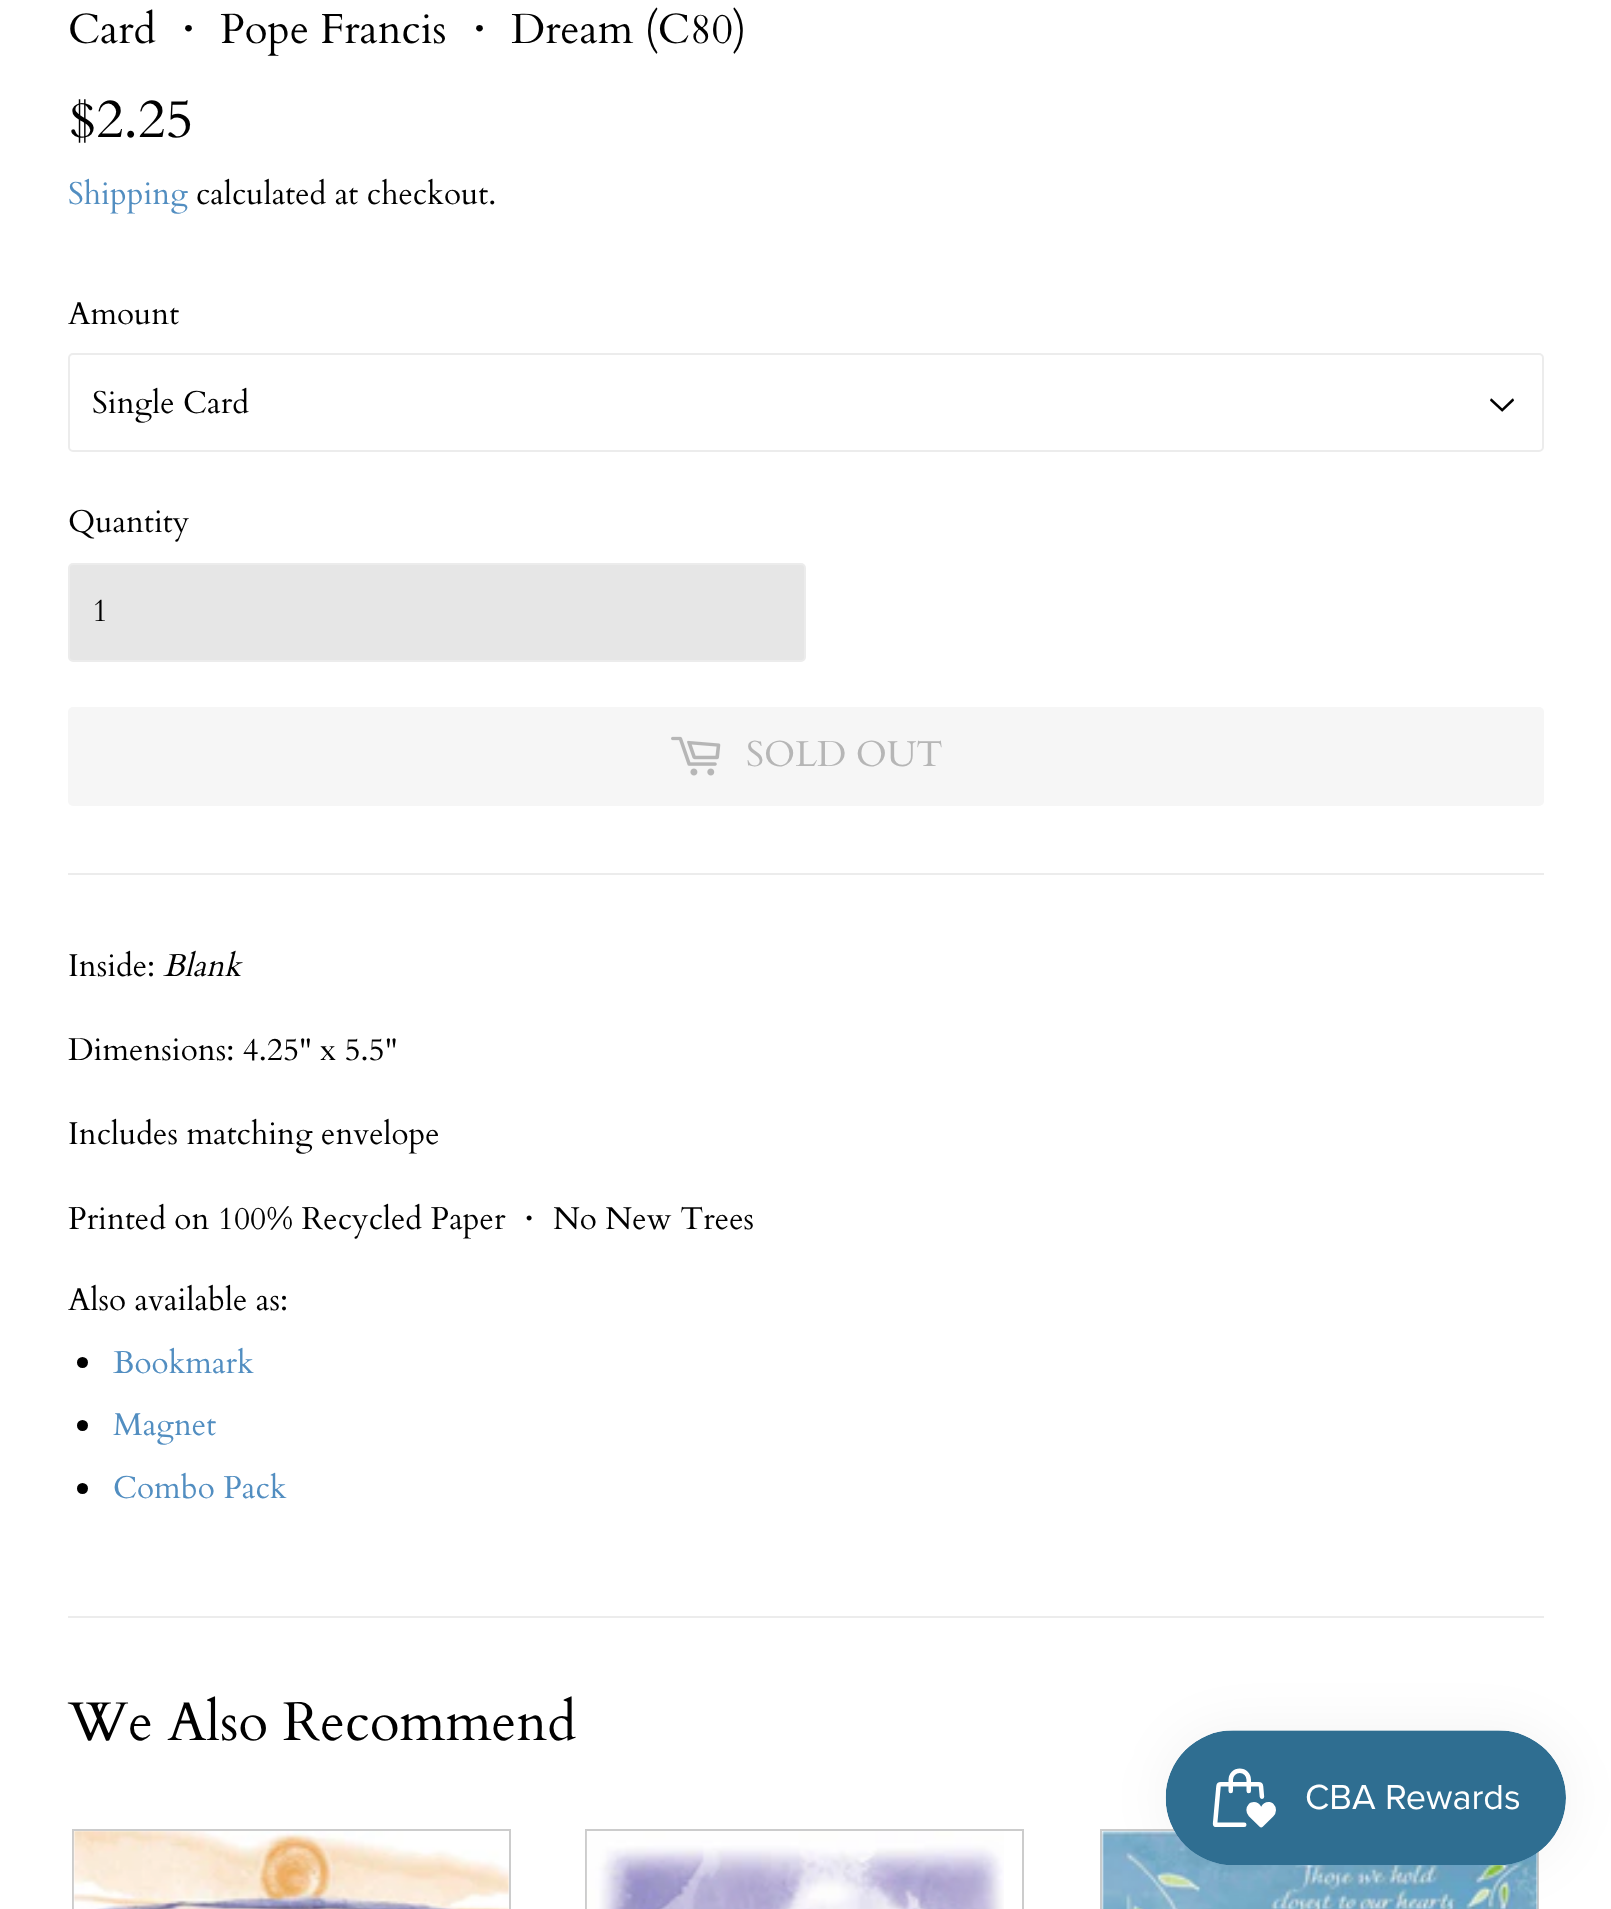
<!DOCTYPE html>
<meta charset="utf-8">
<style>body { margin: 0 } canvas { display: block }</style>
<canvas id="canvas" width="1611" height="1909"></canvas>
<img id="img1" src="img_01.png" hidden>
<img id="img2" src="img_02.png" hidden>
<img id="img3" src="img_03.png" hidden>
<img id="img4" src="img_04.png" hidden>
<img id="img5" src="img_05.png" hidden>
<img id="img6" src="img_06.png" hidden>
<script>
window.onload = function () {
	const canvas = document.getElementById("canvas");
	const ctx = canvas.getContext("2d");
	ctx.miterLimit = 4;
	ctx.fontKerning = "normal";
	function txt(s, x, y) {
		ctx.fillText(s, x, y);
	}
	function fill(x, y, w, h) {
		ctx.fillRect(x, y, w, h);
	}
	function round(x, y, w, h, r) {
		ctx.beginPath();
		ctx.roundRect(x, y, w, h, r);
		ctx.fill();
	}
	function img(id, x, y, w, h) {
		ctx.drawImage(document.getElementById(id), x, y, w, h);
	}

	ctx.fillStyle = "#FFFFFF";
	fill(0, 0, 1611, 1909);
	img("img1", 1490, 398, 24, 14);
	ctx.beginPath();
	ctx.roundRect(69, 354, 1474, 97, 4);
	ctx.strokeStyle = "#ECECEC";
	ctx.lineWidth = 2;
	ctx.stroke();
	ctx.fillStyle = "#E6E6E6";
	ctx.beginPath();
	ctx.roundRect(69, 564, 736, 97, 4);
	ctx.fill();
	ctx.stroke();
	ctx.fillStyle = "#F6F6F6";
	round(68, 707, 1476, 99, 5);
	img("img2", 671, 736, 50, 40);
	ctx.fillStyle = "#ECECEC";
	fill(68, 873, 1476, 2);
	ctx.fillStyle = "#000000";
	ctx.beginPath();
	ctx.arc(82.5, 1362.5, 5.5, 0, Math.PI * 2);
	ctx.fill();
	ctx.beginPath();
	ctx.arc(82.5, 1425.5, 5.5, 0, Math.PI * 2);
	ctx.fill();
	ctx.beginPath();
	ctx.arc(82.5, 1488.5, 5.5, 0, Math.PI * 2);
	ctx.fill();
	ctx.fillStyle = "#ECECEC";
	fill(68, 1616, 1476, 2);
	ctx.strokeStyle = "#CCCCCC";
	ctx.strokeRect(73, 1830, 437, 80);
	img("img3", 73, 1831, 436, 78);
	ctx.strokeRect(586, 1830, 437, 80);
	img("img4", 586, 1831, 418, 78);
	ctx.strokeRect(1101, 1830, 437, 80);
	img("img5", 1100, 1830, 438, 79);
	ctx.fillStyle = "rgba(0, 0, 0, 0.05)";
	ctx.filter = "blur(28px)";
	ctx.beginPath();
	ctx.roundRect(1166, 1730, 400, 135, 67.5);
	ctx.fill();
	ctx.filter = "none";
	img("img6", 1165, 1730, 401, 135);
	ctx.font = "42px Cardo";
	ctx.fillStyle = "#000000";
	txt("Card", 68, 43);
	ctx.font = "500 42px WenQuanYi Zen Hei";
	txt("・", 167, 43);
	ctx.font = "42px Cardo";
	txt("Pope Francis", 220, 43);
	ctx.font = "500 42px WenQuanYi Zen Hei";
	txt("・", 458, 43);
	ctx.font = "42px Cardo";
	txt("Dream (C80)", 511, 43);
	ctx.font = "54.5px Cardo";
	txt("$2.25", 68, 137);
	ctx.font = "31.5px Cardo";
	ctx.fillStyle = "#528EC1";
	txt("Shipping", 68, 204);
	ctx.fillStyle = "#000000";
	txt("calculated at checkout.", 196, 204);
	txt("Amount", 68, 324);
	txt("Single Card", 92, 413);
	txt("Quantity", 68, 532);
	txt("1", 92, 621);
	ctx.font = "36px Cardo";
	ctx.fillStyle = "#B6B6B6";
	txt("SOLD OUT", 746, 766);
	ctx.font = "31.5px Cardo";
	ctx.fillStyle = "#000000";
	txt("Inside:", 68, 976);
	ctx.font = "italic 31.5px Cardo";
	txt("Blank", 163, 976);
	ctx.font = "31.5px Cardo";
	txt("Dimensions: 4.25\" x 5.5\"", 68, 1060);
	txt("Includes matching envelope", 68, 1144);
	txt("Printed on 100% Recycled Paper", 68, 1229);
	ctx.font = "500 31.5px WenQuanYi Zen Hei";
	txt("・", 513, 1229);
	ctx.font = "31.5px Cardo";
	txt("No New Trees", 553, 1229);
	txt("Also available as:", 68, 1310);
	ctx.fillStyle = "#528EC1";
	txt("Bookmark", 113, 1373);
	txt("Magnet", 113, 1435);
	txt("Combo Pack", 113, 1498);
	ctx.font = "54.5px Cardo";
	ctx.fillStyle = "#000000";
	txt("We Also Recommend", 68, 1740);
};
</script>
